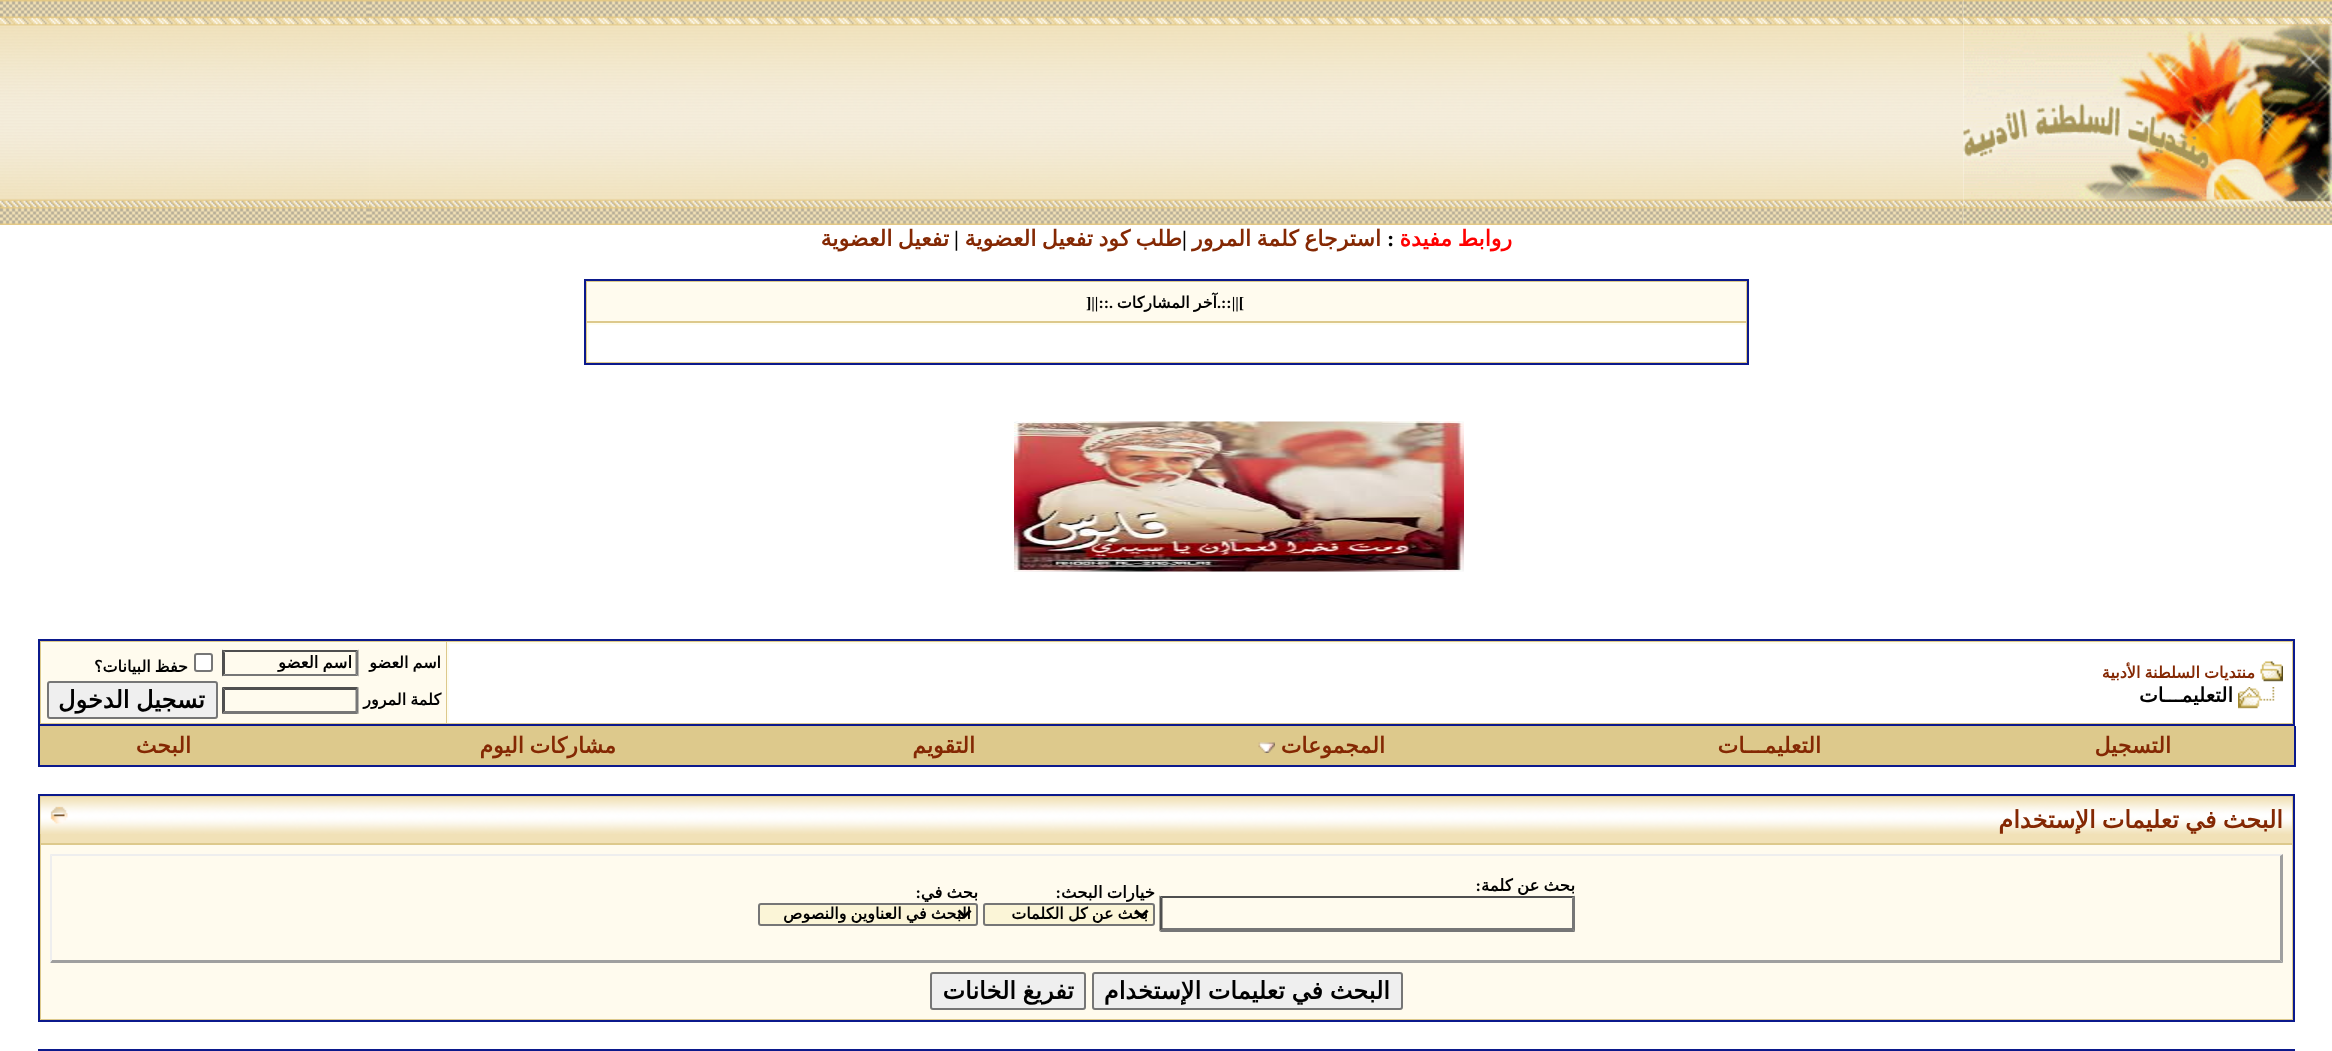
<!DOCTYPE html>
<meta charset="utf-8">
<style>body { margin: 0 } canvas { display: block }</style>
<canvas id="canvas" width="2332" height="1051"></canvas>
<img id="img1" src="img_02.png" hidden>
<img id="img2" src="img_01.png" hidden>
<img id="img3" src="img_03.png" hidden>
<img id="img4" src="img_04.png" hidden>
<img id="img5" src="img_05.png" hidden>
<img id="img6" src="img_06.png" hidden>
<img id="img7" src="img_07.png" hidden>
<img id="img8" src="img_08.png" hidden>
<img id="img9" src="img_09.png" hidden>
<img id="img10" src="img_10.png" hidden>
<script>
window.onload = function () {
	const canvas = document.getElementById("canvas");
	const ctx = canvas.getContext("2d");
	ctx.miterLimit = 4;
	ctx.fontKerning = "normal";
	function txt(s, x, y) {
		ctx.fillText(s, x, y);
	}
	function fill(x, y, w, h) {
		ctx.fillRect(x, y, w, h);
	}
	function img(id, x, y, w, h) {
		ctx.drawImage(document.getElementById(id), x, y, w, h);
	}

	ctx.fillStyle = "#FFFFFF";
	fill(0, 0, 2332, 1051);
	img("img1", 369, 0, 1595, 225);
	img("img2", 1963, 0, 369, 225);
	img("img3", 0, 0, 369, 225);
	img("img4", 365, 17, 4, 6);
	ctx.fillStyle = "#DDC98C";
	ctx.beginPath();
	ctx.rect(585, 280, 1163, 84);
	ctx.fill();
	ctx.strokeStyle = "#0B198C";
	ctx.lineWidth = 2;
	ctx.stroke();
	ctx.fillStyle = "#FFFBEE";
	fill(589, 284, 1157, 37);
	ctx.fillStyle = "#FEFDF0";
	fill(587, 282, 1159, 2);
	fill(587, 282, 2, 39);
	ctx.fillStyle = "#FFFFFF";
	fill(589, 325, 1157, 37);
	ctx.fillStyle = "#FEFDF0";
	fill(587, 323, 1159, 2);
	fill(587, 323, 2, 39);
	img("img5", 1014, 421, 450, 151);
	ctx.fillStyle = "#DDC98C";
	ctx.beginPath();
	ctx.rect(39, 640, 2255, 85);
	ctx.fill();
	ctx.stroke();
	ctx.fillStyle = "#FFFFFF";
	fill(449, 644, 1843, 79);
	ctx.fillStyle = "#FEFDF0";
	fill(447, 642, 1845, 2);
	fill(447, 642, 2, 81);
	img("img6", 2260, 661, 23, 21);
	img("img7", 2238, 687, 37, 22);
	ctx.fillStyle = "#FFFBEE";
	fill(43, 644, 403, 79);
	ctx.fillStyle = "#FEFDF0";
	fill(41, 642, 405, 2);
	fill(41, 642, 2, 81);
	ctx.fillStyle = "#4F4F4F";
	ctx.beginPath();
	ctx.moveTo(222, 650);
	ctx.lineTo(358, 650);
	ctx.lineTo(356, 652);
	ctx.lineTo(225, 652);
	ctx.closePath();
	ctx.fill();
	ctx.fillStyle = "#767676";
	ctx.beginPath();
	ctx.moveTo(358.5, 649.5);
	ctx.lineTo(358.5, 676.5);
	ctx.lineTo(355.5, 673.5);
	ctx.lineTo(355.5, 652.5);
	ctx.closePath();
	ctx.fill();
	ctx.beginPath();
	ctx.moveTo(358, 676);
	ctx.lineTo(222, 676);
	ctx.lineTo(225, 674);
	ctx.lineTo(356, 674);
	ctx.closePath();
	ctx.fill();
	ctx.fillStyle = "#4F4F4F";
	ctx.beginPath();
	ctx.moveTo(222, 676.5);
	ctx.lineTo(222, 649.5);
	ctx.lineTo(225, 652.5);
	ctx.lineTo(225, 673.5);
	ctx.closePath();
	ctx.fill();
	ctx.fillStyle = "#FFFFFF";
	ctx.beginPath();
	ctx.roundRect(195, 654, 17, 17, 2);
	ctx.fill();
	ctx.strokeStyle = "#767676";
	ctx.stroke();
	ctx.fillStyle = "#4F4F4F";
	ctx.beginPath();
	ctx.moveTo(222, 687);
	ctx.lineTo(358, 687);
	ctx.lineTo(356, 690);
	ctx.lineTo(225, 690);
	ctx.closePath();
	ctx.fill();
	ctx.fillStyle = "#767676";
	ctx.beginPath();
	ctx.moveTo(358.5, 687);
	ctx.lineTo(358.5, 714);
	ctx.lineTo(355.5, 711);
	ctx.lineTo(355.5, 690);
	ctx.closePath();
	ctx.fill();
	ctx.beginPath();
	ctx.moveTo(358, 714);
	ctx.lineTo(222, 714);
	ctx.lineTo(225, 711);
	ctx.lineTo(356, 711);
	ctx.closePath();
	ctx.fill();
	ctx.fillStyle = "#4F4F4F";
	ctx.beginPath();
	ctx.moveTo(222, 714);
	ctx.lineTo(222, 687);
	ctx.lineTo(225, 690);
	ctx.lineTo(225, 711);
	ctx.closePath();
	ctx.fill();
	ctx.fillStyle = "#EFEFEF";
	ctx.beginPath();
	ctx.roundRect(48, 682, 169, 36, 2);
	ctx.fill();
	ctx.stroke();
	ctx.fillStyle = "#DDC98C";
	fill(40, 726, 2254, 39);
	ctx.fillStyle = "#0B198C";
	fill(2294, 726, 2, 41);
	fill(38, 765, 2257, 2);
	fill(38, 726, 2, 41);
	img("img8", 1258, 742, 17, 11);
	ctx.fillStyle = "#DDC98C";
	ctx.beginPath();
	ctx.rect(39, 795, 2255, 226);
	ctx.fill();
	ctx.strokeStyle = "#0B198C";
	ctx.stroke();
	ctx.fillStyle = "#F1E1B7";
	fill(41, 834, 2251, 9);
	img("img9", 40, 796, 2252, 38);
	img("img10", 50, 806, 18, 18);
	ctx.fillStyle = "#FFFBEE";
	fill(41, 845, 2251, 174);
	ctx.fillStyle = "#EEEEEE";
	ctx.beginPath();
	ctx.moveTo(50, 854);
	ctx.lineTo(2283, 854);
	ctx.lineTo(2280, 856);
	ctx.lineTo(52, 856);
	ctx.closePath();
	ctx.fill();
	ctx.fillStyle = "#9F9F9F";
	ctx.beginPath();
	ctx.moveTo(2283, 854);
	ctx.lineTo(2283, 963);
	ctx.lineTo(2280, 960);
	ctx.lineTo(2280, 856);
	ctx.closePath();
	ctx.fill();
	ctx.beginPath();
	ctx.moveTo(2283, 963);
	ctx.lineTo(50, 963);
	ctx.lineTo(52, 960);
	ctx.lineTo(2280, 960);
	ctx.closePath();
	ctx.fill();
	ctx.fillStyle = "#EEEEEE";
	ctx.beginPath();
	ctx.moveTo(50, 963);
	ctx.lineTo(50, 854);
	ctx.lineTo(52, 856);
	ctx.lineTo(52, 960);
	ctx.closePath();
	ctx.fill();
	ctx.fillStyle = "#4F4F4F";
	ctx.beginPath();
	ctx.moveTo(1160, 896);
	ctx.lineTo(1575, 896);
	ctx.lineTo(1572, 898);
	ctx.lineTo(1162, 898);
	ctx.closePath();
	ctx.fill();
	ctx.fillStyle = "#767676";
	ctx.beginPath();
	ctx.moveTo(1575, 895.5);
	ctx.lineTo(1575, 931.5);
	ctx.lineTo(1572, 928.5);
	ctx.lineTo(1572, 898.5);
	ctx.closePath();
	ctx.fill();
	ctx.beginPath();
	ctx.moveTo(1575, 932);
	ctx.lineTo(1160, 932);
	ctx.lineTo(1162, 928);
	ctx.lineTo(1572, 928);
	ctx.closePath();
	ctx.fill();
	ctx.fillStyle = "#4F4F4F";
	ctx.beginPath();
	ctx.moveTo(1159.5, 931.5);
	ctx.lineTo(1159.5, 895.5);
	ctx.lineTo(1162.5, 898.5);
	ctx.lineTo(1162.5, 928.5);
	ctx.closePath();
	ctx.fill();
	ctx.fillStyle = "#FBF5D7";
	ctx.beginPath();
	ctx.roundRect(984, 904, 170, 21, 2);
	ctx.fill();
	ctx.strokeStyle = "#767676";
	ctx.stroke();
	ctx.beginPath();
	ctx.moveTo(1135.5, 910.5);
	ctx.lineTo(1141.5, 916.5);
	ctx.lineTo(1147.5, 910.5);
	ctx.strokeStyle = "#000000";
	ctx.lineWidth = 3;
	ctx.stroke();
	ctx.beginPath();
	ctx.roundRect(759, 904, 218, 21, 2);
	ctx.fill();
	ctx.strokeStyle = "#767676";
	ctx.lineWidth = 2;
	ctx.stroke();
	ctx.beginPath();
	ctx.moveTo(958.5, 910.5);
	ctx.lineTo(964.5, 916.5);
	ctx.lineTo(970.5, 910.5);
	ctx.strokeStyle = "#000000";
	ctx.lineWidth = 3;
	ctx.stroke();
	ctx.fillStyle = "#EFEFEF";
	ctx.beginPath();
	ctx.roundRect(1093, 973, 309, 36, 2);
	ctx.fill();
	ctx.strokeStyle = "#767676";
	ctx.lineWidth = 2;
	ctx.stroke();
	ctx.beginPath();
	ctx.roundRect(931, 973, 154, 36, 2);
	ctx.fill();
	ctx.stroke();
	ctx.strokeStyle = "#0B198C";
	ctx.strokeRect(39, 1050, 2255, 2);
	ctx.wordSpacing = "-1.5px";
	ctx.direction = "rtl";
	ctx.font = "bold 22px DejaVu Sans";
	ctx.fillStyle = "#FF0000";
	txt("روابط مفيدة", 1512, 246);
	ctx.fillStyle = "#842803";
	txt("استرجاع كلمة المرور", 1381, 246);
	ctx.wordSpacing = "0px";
	ctx.direction = "ltr";
	ctx.font = "bold 22px Liberation Serif";
	ctx.fillStyle = "#000000";
	txt("|", 954, 246);
	ctx.wordSpacing = "-1.5px";
	ctx.direction = "rtl";
	ctx.font = "bold 22px DejaVu Sans";
	ctx.fillStyle = "#842803";
	txt("تفعيل العضوية", 949, 246);
	ctx.wordSpacing = "0px";
	ctx.direction = "ltr";
	ctx.font = "bold 22px Liberation Serif";
	ctx.fillStyle = "#000000";
	txt(":", 1387, 246);
	txt("|", 1182, 246);
	ctx.wordSpacing = "-1.5px";
	ctx.direction = "rtl";
	ctx.font = "bold 22px DejaVu Sans";
	ctx.fillStyle = "#842803";
	txt("طلب كود تفعيل العضوية", 1182, 246);
	ctx.wordSpacing = "0px";
	ctx.direction = "ltr";
	ctx.font = "bold 16px Liberation Serif";
	ctx.fillStyle = "#000000";
	txt(".::||[", 1217, 308);
	ctx.wordSpacing = "-1px";
	ctx.direction = "rtl";
	ctx.font = "bold 16px DejaVu Sans";
	txt("آخر المشاركات", 1217, 308);
	ctx.wordSpacing = "0px";
	ctx.direction = "ltr";
	ctx.font = "bold 16px Liberation Serif";
	txt("]||::.", 1086, 308);
	ctx.wordSpacing = "-1px";
	ctx.direction = "rtl";
	ctx.font = "bold 16px DejaVu Sans";
	ctx.fillStyle = "#842803";
	txt("منتديات السلطنة الأدبية", 2255, 678);
	ctx.wordSpacing = "0px";
	ctx.font = "bold 20px DejaVu Sans";
	ctx.fillStyle = "#000000";
	txt("التعليمـــات", 2233, 702);
	ctx.wordSpacing = "-1px";
	ctx.font = "bold 16px DejaVu Sans";
	txt("اسم العضو", 441, 668);
	ctx.font = "bold 16.5px DejaVu Sans";
	txt("اسم العضو", 352, 668);
	ctx.font = "bold 16px DejaVu Sans";
	txt("حفظ البيانات؟", 188, 672);
	txt("كلمة المرور", 441, 705);
	ctx.font = "bold 24px DejaVu Sans";
	txt("تسجيل الدخول", 205, 708);
	ctx.wordSpacing = "0px";
	ctx.font = "bold 22px DejaVu Sans";
	ctx.fillStyle = "#842803";
	txt("التسجيل", 2171, 753);
	txt("التعليمـــات", 1821, 753);
	txt("المجموعات", 1385, 753);
	txt("التقويم", 975, 753);
	ctx.wordSpacing = "-1.5px";
	txt("مشاركات اليوم", 616, 753);
	ctx.wordSpacing = "0px";
	txt("البحث", 191, 753);
	ctx.wordSpacing = "-1.5px";
	ctx.font = "bold 24px DejaVu Sans";
	txt("البحث في تعليمات الإستخدام", 2283, 828);
	ctx.wordSpacing = "-1px";
	ctx.font = "bold 16.5px DejaVu Sans";
	ctx.fillStyle = "#000000";
	txt("بحث عن كلمة", 1575, 891);
	ctx.wordSpacing = "0px";
	ctx.font = "bold 16.5px Liberation Serif";
	txt(":", 1481, 891);
	ctx.wordSpacing = "-1px";
	ctx.font = "bold 16.5px DejaVu Sans";
	txt("خيارات البحث", 1155, 898);
	ctx.wordSpacing = "0px";
	ctx.font = "bold 16.5px Liberation Serif";
	txt(":", 1061, 898);
	ctx.save();
	ctx.beginPath();
	ctx.rect(1008, 905, 140, 19);
	ctx.clip();
	ctx.wordSpacing = "-1px";
	ctx.font = "bold 16px DejaVu Sans";
	txt("بحث عن كل الكلمات", 1148, 919);
	ctx.restore();
	ctx.wordSpacing = "-1px";
	ctx.font = "bold 16.5px DejaVu Sans";
	txt("بحث في", 978, 898);
	ctx.wordSpacing = "0px";
	ctx.font = "bold 16.5px Liberation Serif";
	txt(":", 921, 898);
	ctx.save();
	ctx.beginPath();
	ctx.rect(783, 905, 188, 19);
	ctx.clip();
	ctx.wordSpacing = "-1px";
	ctx.font = "bold 16px DejaVu Sans";
	txt("البحث في العناوين والنصوص", 971, 919);
	ctx.restore();
	ctx.wordSpacing = "-1px";
	ctx.font = "bold 24px DejaVu Sans";
	txt("البحث في تعليمات الإستخدام", 1390, 999);
	txt("تفريغ الخانات", 1074, 999);
};
</script>
